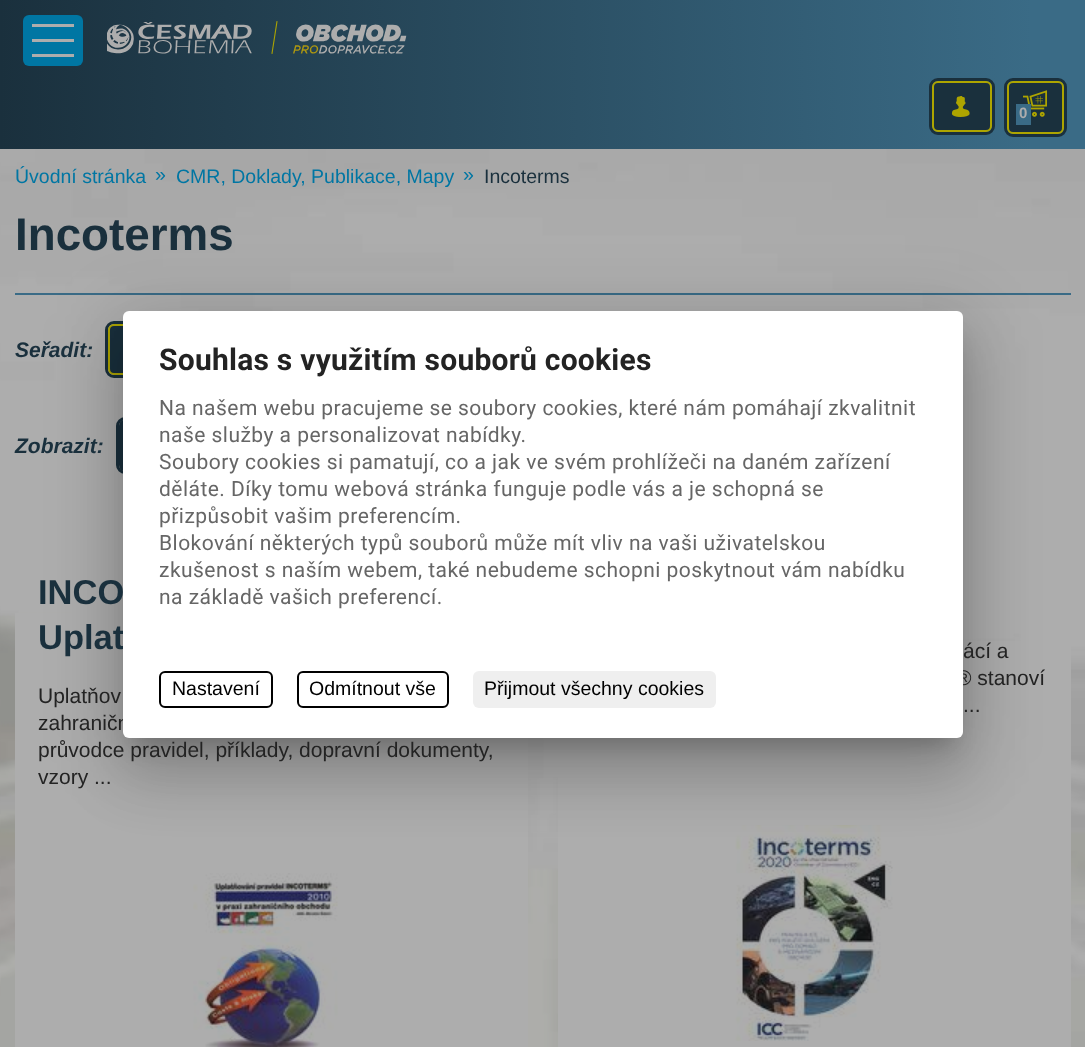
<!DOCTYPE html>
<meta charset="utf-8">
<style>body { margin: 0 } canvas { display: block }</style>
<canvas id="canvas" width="1085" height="1047"></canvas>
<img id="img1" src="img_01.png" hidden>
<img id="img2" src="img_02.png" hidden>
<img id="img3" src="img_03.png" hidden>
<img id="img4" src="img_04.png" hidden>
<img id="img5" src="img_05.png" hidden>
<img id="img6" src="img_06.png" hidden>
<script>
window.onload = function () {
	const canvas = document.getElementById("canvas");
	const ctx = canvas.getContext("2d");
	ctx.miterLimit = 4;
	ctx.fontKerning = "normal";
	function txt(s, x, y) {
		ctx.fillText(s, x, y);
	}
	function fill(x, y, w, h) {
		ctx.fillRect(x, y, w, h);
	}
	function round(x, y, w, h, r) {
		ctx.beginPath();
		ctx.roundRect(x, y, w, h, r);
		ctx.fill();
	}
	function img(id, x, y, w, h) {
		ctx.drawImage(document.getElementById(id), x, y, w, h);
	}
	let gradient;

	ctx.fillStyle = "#FFFFFF";
	fill(0, 0, 1085, 1047);
	img("img1", 0, 149, 1085, 898);
	gradient = ctx.createLinearGradient(0, 74, 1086, 74);
	gradient.addColorStop(0, "#1A303D");
	gradient.addColorStop(0.95, "#3A6B86");
	ctx.fillStyle = gradient;
	fill(0, 0, 1085, 149);
	ctx.fillStyle = "#0076A3";
	round(23, 15, 60, 51, 6);
	ctx.fillStyle = "#ADADAD";
	fill(32, 24, 42, 3);
	fill(32, 39, 42, 3);
	fill(32, 54, 42, 3);
	img("img2", 107, 21, 300, 33);
	ctx.beginPath();
	ctx.roundRect(930.5, 79.5, 63, 54, 7.5);
	ctx.strokeStyle = "#1A303D";
	ctx.lineWidth = 3;
	ctx.stroke();
	ctx.fillStyle = "#1A303D";
	ctx.beginPath();
	ctx.roundRect(933, 82, 58, 49, 5);
	ctx.fill();
	ctx.strokeStyle = "#ADA500";
	ctx.lineWidth = 2;
	ctx.stroke();
	img("img3", 951, 96, 19, 21);
	ctx.beginPath();
	ctx.roundRect(1005.5, 79.5, 60, 56, 7.5);
	ctx.strokeStyle = "#1A303D";
	ctx.lineWidth = 3;
	ctx.stroke();
	ctx.beginPath();
	ctx.roundRect(1008, 82, 55, 51, 5);
	ctx.fill();
	ctx.strokeStyle = "#ADA500";
	ctx.lineWidth = 2;
	ctx.stroke();
	img("img4", 1023, 90, 24, 27);
	ctx.fillStyle = "#3A6B86";
	fill(1016, 104, 15, 21);
	fill(15, 293, 1056, 2);
	ctx.beginPath();
	ctx.roundRect(106.5, 322.5, 170, 54, 7.5);
	ctx.strokeStyle = "#1A303D";
	ctx.lineWidth = 3;
	ctx.stroke();
	ctx.fillStyle = "#1A303D";
	ctx.beginPath();
	ctx.roundRect(109, 325, 165, 49, 5);
	ctx.fill();
	ctx.strokeStyle = "#ADA500";
	ctx.lineWidth = 2;
	ctx.stroke();
	ctx.beginPath();
	ctx.roundRect(117.5, 418.5, 228, 54, 7.5);
	ctx.strokeStyle = "#1A303D";
	ctx.lineWidth = 3;
	ctx.stroke();
	ctx.save();
	ctx.beginPath();
	ctx.roundRect(119, 420, 225, 51, 6);
	ctx.clip();
	gradient = ctx.createLinearGradient(120, 446, 342, 446);
	gradient.addColorStop(0, "#1A303D");
	gradient.addColorStop(0.95, "#3A6B86");
	ctx.fillStyle = gradient;
	fill(120, 420, 3, 51);
	ctx.restore();
	ctx.beginPath();
	ctx.roundRect(120, 421, 223, 49, 5);
	ctx.lineWidth = 2;
	ctx.stroke();
	ctx.fillStyle = "#ADADAD";
	fill(15, 613, 513, 434);
	img("img5", 193, 873, 145, 174);
	fill(558, 641, 513, 406);
	img("img6", 735, 825, 158, 216);
	ctx.fillStyle = "rgba(0, 0, 0, 0.12)";
	ctx.filter = "blur(34.5px)";
	ctx.beginPath();
	ctx.roundRect(111, 312, 864, 452, 18);
	ctx.fill();
	ctx.filter = "none";
	ctx.fillStyle = "rgba(0, 0, 0, 0.14)";
	ctx.filter = "blur(28.5px)";
	ctx.beginPath();
	ctx.roundRect(119, 342, 849, 437, 11);
	ctx.fill();
	ctx.filter = "none";
	ctx.fillStyle = "rgba(0, 0, 0, 0.2)";
	ctx.filter = "blur(11px)";
	ctx.beginPath();
	ctx.rect(134, 338, 819, 406);
	ctx.fill();
	ctx.filter = "none";
	ctx.font = "bold 15px Liberation Sans";
	ctx.fillStyle = "#ADADAD";
	txt("0", 1019, 118);
	ctx.font = "19.5px Liberation Sans";
	ctx.fillStyle = "#0076A3";
	txt("Úvodní stránka", 15, 183);
	txt("»", 155, 181);
	txt("CMR, Doklady, Publikace, Mapy", 176, 183);
	txt("»", 463, 181);
	ctx.fillStyle = "#1A303D";
	txt("Incoterms", 484, 183);
	ctx.font = "bold 45.75px Liberation Sans";
	txt("Incoterms", 15, 250);
	ctx.font = "italic bold 21px Liberation Sans";
	txt("Seřadit:", 15, 357);
	txt("Zobrazit:", 15, 453);
	ctx.font = "bold 34.5px Liberation Sans";
	txt("INCO", 38, 604);
	txt("Uplat", 38, 649);
	ctx.font = "21px Liberation Sans";
	ctx.fillStyle = "#232323";
	txt("Uplatňov", 38, 703);
	txt("zahraničn", 38, 730);
	txt("průvodce pravidel, příklady, dopravní dokumenty,", 38, 757);
	txt("vzory ...", 38, 784);
	txt("ácí a", 963, 658);
	txt("® stanoví", 956, 685);
	txt("...", 963, 712);
	ctx.fillStyle = "#FFFFFF";
	round(123, 311, 840, 427, 6);
	ctx.letterSpacing = "0.25px";
	ctx.font = "bold 30px Roboto";
	ctx.fillStyle = "#232323";
	txt("Souhlas s využitím souborů cookies", 159, 370);
	ctx.letterSpacing = "0.47px";
	ctx.font = "21px Roboto";
	ctx.fillStyle = "#666666";
	txt("Na našem webu pracujeme se soubory cookies, které nám pomáhají zkvalitnit", 159, 415);
	txt("naše služby a personalizovat nabídky.", 159, 442);
	txt("Soubory cookies si pamatují, co a jak ve svém prohlížeči na daném zařízení", 159, 469);
	txt("děláte. Díky tomu webová stránka funguje podle vás a je schopná se", 159, 496);
	txt("přizpůsobit vašim preferencím.", 159, 523);
	txt("Blokování některých typů souborů může mít vliv na vaši uživatelskou", 159, 550);
	txt("zkušenost s naším webem, také nebudeme schopni poskytnout vám nabídku", 159, 577);
	txt("na základě vašich preferencí.", 159, 604);
	ctx.beginPath();
	ctx.roundRect(160, 672, 112, 35, 5);
	ctx.strokeStyle = "#000000";
	ctx.stroke();
	ctx.letterSpacing = "0px";
	ctx.font = "19.5px Liberation Sans";
	ctx.fillStyle = "#000000";
	txt("Nastavení", 172, 695);
	ctx.beginPath();
	ctx.roundRect(298, 672, 150, 35, 5);
	ctx.stroke();
	txt("Odmítnout vše", 309, 695);
	ctx.fillStyle = "#EFEFEF";
	round(473, 671, 243, 37, 6);
	ctx.fillStyle = "#000000";
	txt("Přijmout všechny cookies", 484, 695);
};
</script>
